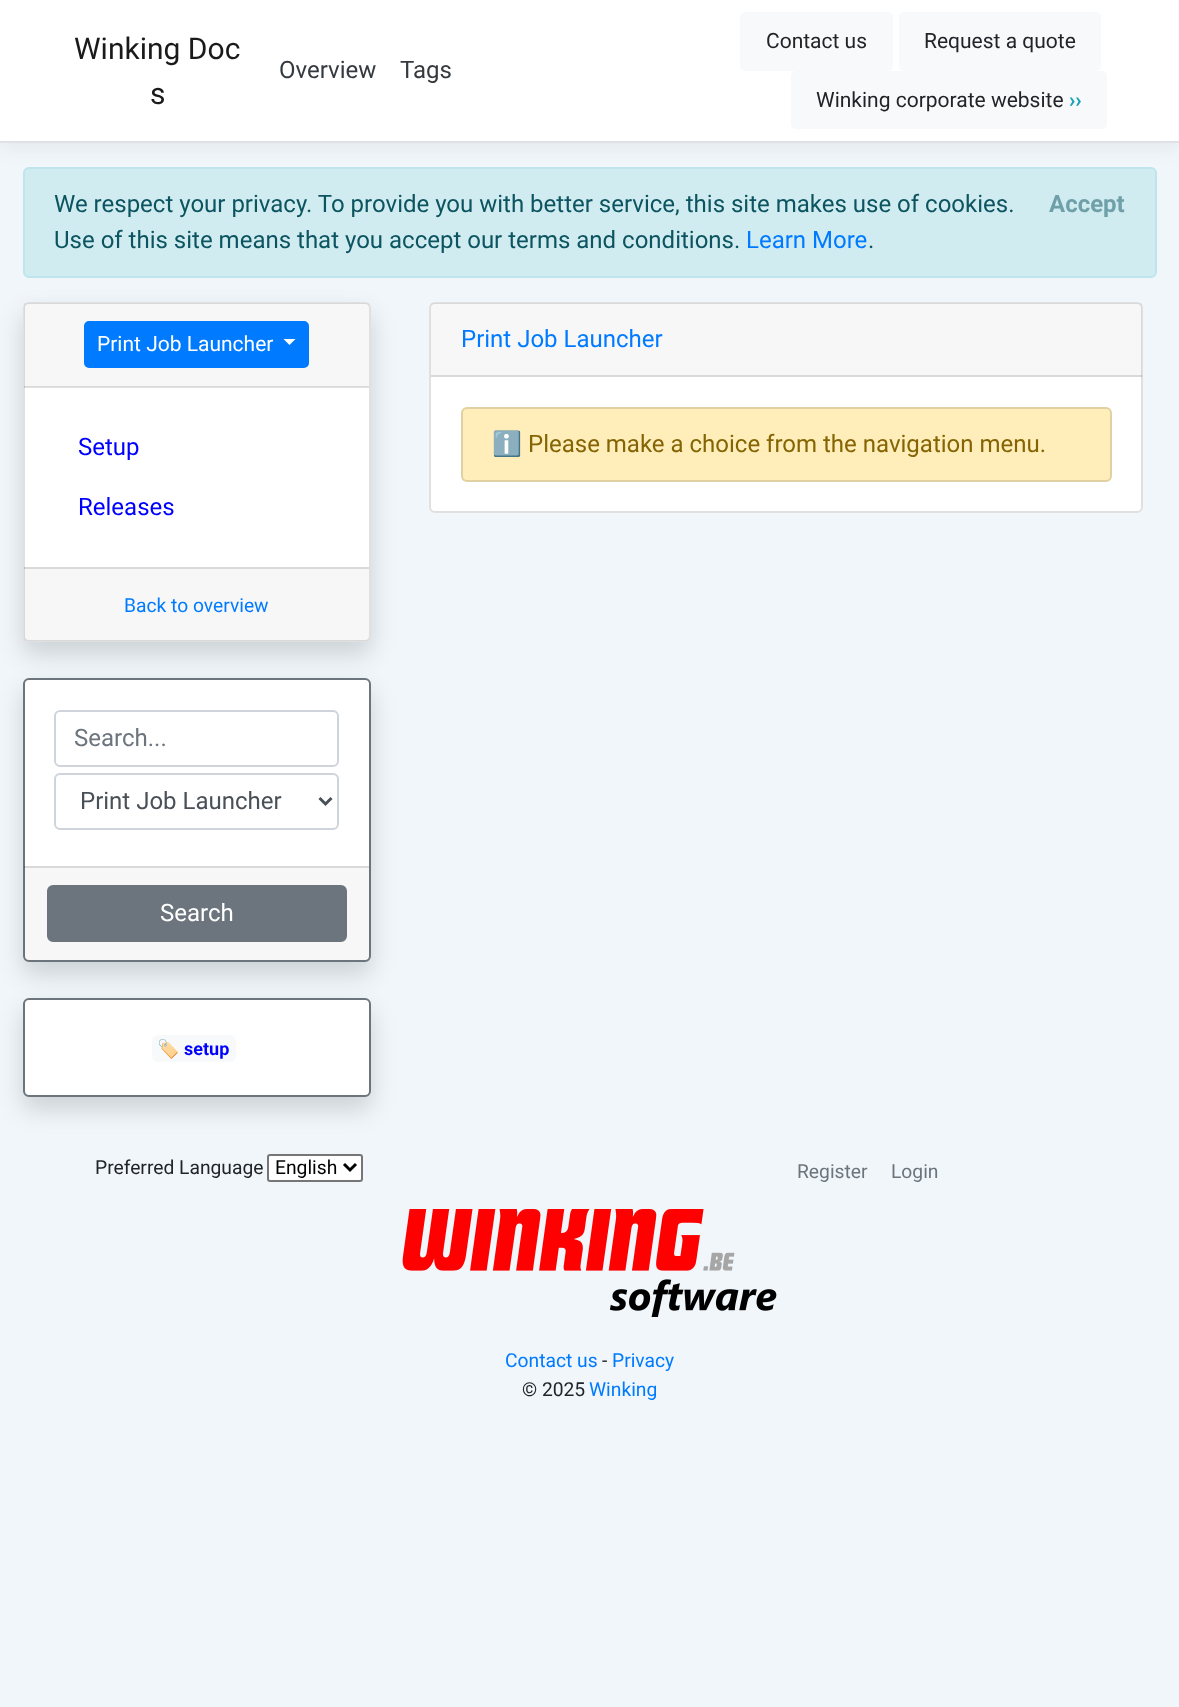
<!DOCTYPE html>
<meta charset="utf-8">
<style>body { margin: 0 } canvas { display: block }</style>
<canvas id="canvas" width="1179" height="1707"></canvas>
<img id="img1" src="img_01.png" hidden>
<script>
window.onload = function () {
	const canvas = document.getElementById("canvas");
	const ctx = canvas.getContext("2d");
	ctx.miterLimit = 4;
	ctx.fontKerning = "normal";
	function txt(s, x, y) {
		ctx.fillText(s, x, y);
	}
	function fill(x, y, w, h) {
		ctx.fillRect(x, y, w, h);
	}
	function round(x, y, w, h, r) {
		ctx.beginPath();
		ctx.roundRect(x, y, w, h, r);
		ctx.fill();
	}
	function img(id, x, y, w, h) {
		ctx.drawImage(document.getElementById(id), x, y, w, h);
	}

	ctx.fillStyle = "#F0F6FA";
	fill(0, 0, 1179, 1707);
	ctx.fillStyle = "rgba(0, 0, 0, 0.05)";
	ctx.filter = "blur(9px)";
	ctx.beginPath();
	ctx.rect(0, 6, 1179, 143);
	ctx.fill();
	ctx.filter = "none";
	ctx.fillStyle = "#FFFFFF";
	fill(0, 0, 1179, 141);
	ctx.fillStyle = "#DEE2E6";
	fill(0, 141, 1179, 2);
	ctx.fillStyle = "#F8F9FA";
	round(740, 12, 153, 59, 5);
	round(899, 12, 202, 59, 5);
	round(791, 71, 316, 58, 5);
	ctx.fillStyle = "#D1ECF1";
	ctx.beginPath();
	ctx.roundRect(24, 168, 1132, 109, 5);
	ctx.fill();
	ctx.strokeStyle = "#BEE5EB";
	ctx.lineWidth = 2;
	ctx.stroke();
	ctx.fillStyle = "rgba(0, 0, 0, 0.15)";
	ctx.filter = "blur(12px)";
	ctx.beginPath();
	ctx.roundRect(23, 314, 348, 340, 6);
	ctx.fill();
	ctx.filter = "none";
	ctx.fillStyle = "#FFFFFF";
	round(23, 302, 348, 340, 6);
	ctx.beginPath();
	ctx.roundRect(24, 303, 346, 338, 5);
	ctx.strokeStyle = "rgba(0, 0, 0, 0.12)";
	ctx.stroke();
	ctx.fillStyle = "rgba(0, 0, 0, 0.03)";
	fill(24, 303, 345, 84);
	ctx.fillStyle = "rgba(0, 0, 0, 0.12)";
	fill(24, 386, 345, 2);
	ctx.fillStyle = "#007BFF";
	ctx.beginPath();
	ctx.roundRect(85, 322, 223, 45, 4);
	ctx.fill();
	ctx.strokeStyle = "#007BFF";
	ctx.stroke();
	ctx.fillStyle = "#FFFFFF";
	ctx.beginPath();
	ctx.moveTo(283.5, 339);
	ctx.lineTo(295.5, 339);
	ctx.lineTo(289.5, 345);
	ctx.closePath();
	ctx.fill();
	ctx.fillStyle = "rgba(0, 0, 0, 0.03)";
	fill(24, 567, 345, 74);
	ctx.fillStyle = "rgba(0, 0, 0, 0.12)";
	fill(24, 567, 345, 2);
	ctx.fillStyle = "rgba(0, 0, 0, 0.15)";
	ctx.filter = "blur(12px)";
	ctx.beginPath();
	ctx.roundRect(23, 690, 348, 284, 6);
	ctx.fill();
	ctx.filter = "none";
	ctx.fillStyle = "#FFFFFF";
	ctx.beginPath();
	ctx.roundRect(24, 679, 346, 282, 5);
	ctx.fill();
	ctx.strokeStyle = "#6C757D";
	ctx.stroke();
	ctx.beginPath();
	ctx.roundRect(55, 711, 283, 55, 5);
	ctx.strokeStyle = "#CED4DA";
	ctx.stroke();
	ctx.beginPath();
	ctx.roundRect(55, 774, 283, 55, 5);
	ctx.stroke();
	ctx.beginPath();
	ctx.moveTo(319.5, 798);
	ctx.lineTo(325.5, 804);
	ctx.lineTo(331.5, 798);
	ctx.strokeStyle = "#495057";
	ctx.lineWidth = 3;
	ctx.stroke();
	ctx.fillStyle = "rgba(0, 0, 0, 0.03)";
	fill(24, 866, 345, 94);
	ctx.fillStyle = "rgba(0, 0, 0, 0.12)";
	fill(24, 866, 345, 2);
	ctx.fillStyle = "#6C757D";
	ctx.beginPath();
	ctx.roundRect(48, 886, 298, 55, 5);
	ctx.fill();
	ctx.strokeStyle = "#6C757D";
	ctx.lineWidth = 2;
	ctx.stroke();
	ctx.fillStyle = "rgba(0, 0, 0, 0.15)";
	ctx.filter = "blur(12px)";
	ctx.beginPath();
	ctx.roundRect(23, 1010, 348, 99, 6);
	ctx.fill();
	ctx.filter = "none";
	ctx.fillStyle = "#FFFFFF";
	ctx.beginPath();
	ctx.roundRect(24, 999, 346, 97, 5);
	ctx.fill();
	ctx.stroke();
	ctx.fillStyle = "#F8F9FA";
	round(152, 1035, 84, 27, 6);
	ctx.fillStyle = "#FFFFFF";
	round(429, 302, 714, 211, 6);
	ctx.beginPath();
	ctx.roundRect(430, 303, 712, 209, 5);
	ctx.strokeStyle = "rgba(0, 0, 0, 0.12)";
	ctx.stroke();
	ctx.fillStyle = "rgba(0, 0, 0, 0.03)";
	fill(431, 303, 711, 74);
	ctx.fillStyle = "rgba(0, 0, 0, 0.12)";
	fill(431, 375, 711, 2);
	ctx.fillStyle = "#FFEEBA";
	round(461, 407, 651, 75, 6);
	ctx.beginPath();
	ctx.roundRect(462, 408, 649, 73, 5);
	ctx.stroke();
	ctx.fillStyle = "#FFFFFF";
	ctx.beginPath();
	ctx.roundRect(268, 1155, 94, 26, 2);
	ctx.fill();
	ctx.strokeStyle = "#767676";
	ctx.stroke();
	ctx.beginPath();
	ctx.moveTo(344, 1164);
	ctx.lineTo(350, 1170);
	ctx.lineTo(356, 1164);
	ctx.strokeStyle = "#000000";
	ctx.lineWidth = 3;
	ctx.stroke();
	img("img1", 402, 1209, 375, 108);
	ctx.font = "30px Roboto";
	ctx.fillStyle = "#1A1A1A";
	txt("Winking Doc", 74, 59);
	txt("s", 150, 104);
	ctx.font = "24px Roboto";
	ctx.fillStyle = "#343A40";
	txt("Overview", 279, 78);
	txt("Tags", 400, 78);
	ctx.font = "21px Roboto";
	ctx.fillStyle = "#212529";
	txt("Contact us", 766, 48);
	txt("Request a quote", 924, 48);
	txt("Winking corporate website", 816, 107);
	ctx.font = "bold 21px Roboto";
	ctx.fillStyle = "#17A2B8";
	txt("››", 1069, 107);
	ctx.font = "24px Roboto";
	ctx.fillStyle = "#0C5460";
	txt("We respect your privacy. To provide you with better service, this site makes use of cookies.", 54, 212);
	ctx.font = "bold 24px Roboto";
	ctx.fillStyle = "#6FA0A9";
	txt("Accept", 1049, 212);
	ctx.font = "24px Roboto";
	ctx.fillStyle = "#0C5460";
	txt("Use of this site means that you accept our terms and conditions.", 54, 248);
	ctx.fillStyle = "#007BFF";
	txt("Learn More", 746, 248);
	ctx.fillStyle = "#0C5460";
	txt(".", 868, 248);
	ctx.font = "21px Roboto";
	ctx.fillStyle = "#FFFFFF";
	txt("Print Job Launcher", 97, 351);
	ctx.font = "24px Roboto";
	ctx.fillStyle = "#0000FF";
	txt("Setup", 78, 455);
	txt("Releases", 78, 515);
	ctx.font = "19.25px Roboto";
	ctx.fillStyle = "#007BFF";
	txt("Back to overview", 124, 612);
	ctx.font = "24px Roboto";
	ctx.fillStyle = "#6C757D";
	txt("Search...", 74, 746);
	ctx.fillStyle = "#495057";
	txt("Print Job Launcher", 80, 809);
	ctx.fillStyle = "#FFFFFF";
	txt("Search", 160, 921);
	ctx.font = "bold 18px Noto Color Emoji";
	ctx.fillStyle = "#0000FF";
	txt("🏷", 157, 1055);
	ctx.font = "bold 18px Roboto";
	txt("setup", 184, 1055);
	ctx.font = "24px Roboto";
	ctx.fillStyle = "#007BFF";
	txt("Print Job Launcher", 461, 347);
	ctx.font = "24px Noto Color Emoji";
	ctx.fillStyle = "#856404";
	txt("ℹ", 492, 452);
	ctx.font = "24px Roboto";
	txt("Please make a choice from the navigation menu.", 528, 452);
	ctx.font = "19.25px Roboto";
	ctx.fillStyle = "#212529";
	txt("Preferred Language", 95, 1174);
	ctx.fillStyle = "#000000";
	txt("English", 275, 1174);
	ctx.fillStyle = "#6C757D";
	txt("Register", 797, 1178);
	txt("Login", 891, 1178);
	ctx.fillStyle = "#007BFF";
	txt("Contact us", 505, 1367);
	ctx.fillStyle = "#212529";
	txt("-", 602, 1367);
	ctx.fillStyle = "#007BFF";
	txt("Privacy", 612, 1367);
	ctx.fillStyle = "#212529";
	txt("© 2025", 522, 1396);
	ctx.fillStyle = "#007BFF";
	txt("Winking", 589, 1396);
};
</script>
